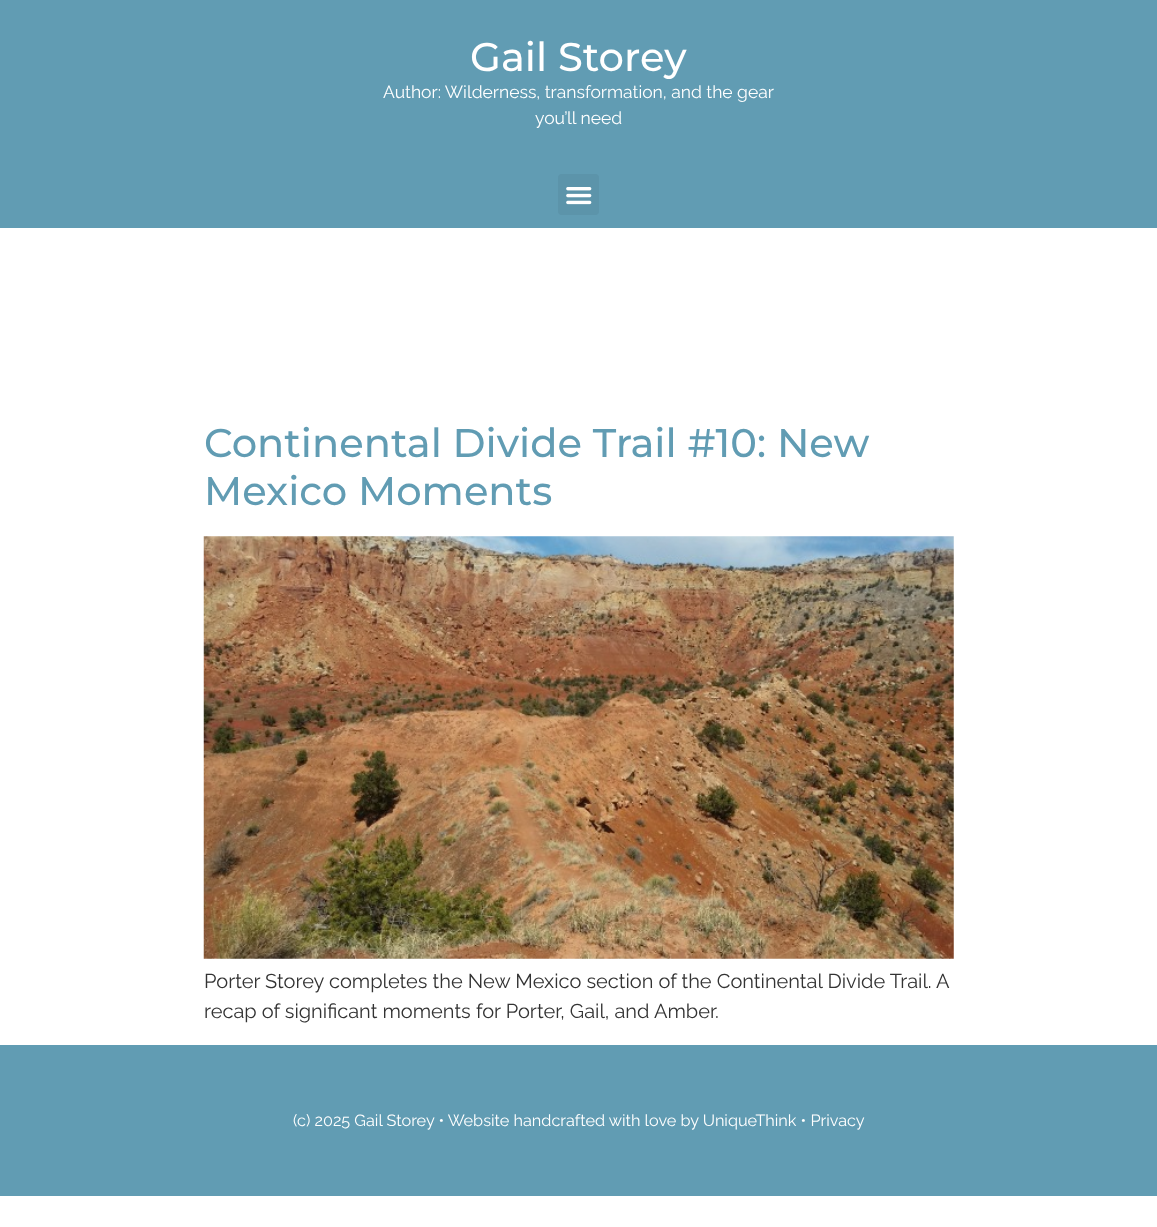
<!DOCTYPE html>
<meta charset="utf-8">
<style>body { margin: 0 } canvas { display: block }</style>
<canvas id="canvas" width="1157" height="1227"></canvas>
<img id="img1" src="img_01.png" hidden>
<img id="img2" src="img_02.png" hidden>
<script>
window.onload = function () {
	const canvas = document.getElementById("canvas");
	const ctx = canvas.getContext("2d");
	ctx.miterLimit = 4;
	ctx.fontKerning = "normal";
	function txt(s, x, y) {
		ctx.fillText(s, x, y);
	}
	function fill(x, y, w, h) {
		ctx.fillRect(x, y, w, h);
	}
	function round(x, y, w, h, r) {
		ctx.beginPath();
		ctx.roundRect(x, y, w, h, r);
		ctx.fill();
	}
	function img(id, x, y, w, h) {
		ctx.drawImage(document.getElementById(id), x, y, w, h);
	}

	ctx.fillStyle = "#FFFFFF";
	fill(0, 0, 1157, 1227);
	ctx.fillStyle = "rgba(0, 0, 0, 0.5)";
	ctx.filter = "blur(0.5px)";
	ctx.beginPath();
	ctx.rect(0, 0, 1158, 228);
	ctx.fill();
	ctx.filter = "none";
	ctx.fillStyle = "#619CB3";
	fill(0, 0, 1157, 228);
	ctx.fillStyle = "#5C94AA";
	round(558, 174, 41, 41, 4);
	img("img1", 566, 187, 26, 18);
	img("img2", 203, 536, 751, 423);
	ctx.fillStyle = "rgba(0, 0, 0, 0.5)";
	ctx.filter = "blur(0.5px)";
	ctx.beginPath();
	ctx.rect(0, 1045, 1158, 151);
	ctx.fill();
	ctx.filter = "none";
	ctx.fillStyle = "#619CB3";
	fill(0, 1045, 1157, 151);
	ctx.font = "500 40px Montserrat";
	ctx.fillStyle = "#FFFFFF";
	txt("Gail Storey", 470, 71);
	ctx.font = "17.5px Raleway";
	txt("Author: Wilderness, transformation, and the gear", 383, 98);
	txt("you’ll need", 535, 124);
	ctx.font = "500 40px Montserrat";
	ctx.fillStyle = "#619CB3";
	txt("Continental Divide Trail #10: New", 204, 457);
	txt("Mexico Moments", 204, 505);
	ctx.font = "20px Raleway";
	ctx.fillStyle = "#333333";
	txt("Porter Storey completes the New Mexico section of the Continental Divide Trail. A", 204, 988);
	txt("recap of significant moments for Porter, Gail, and Amber.", 204, 1018);
	ctx.font = "16.25px Raleway";
	ctx.fillStyle = "#FFFFFF";
	txt("(c) 2025 Gail Storey • Website handcrafted with love by UniqueThink • Privacy", 293, 1126);
};
</script>
